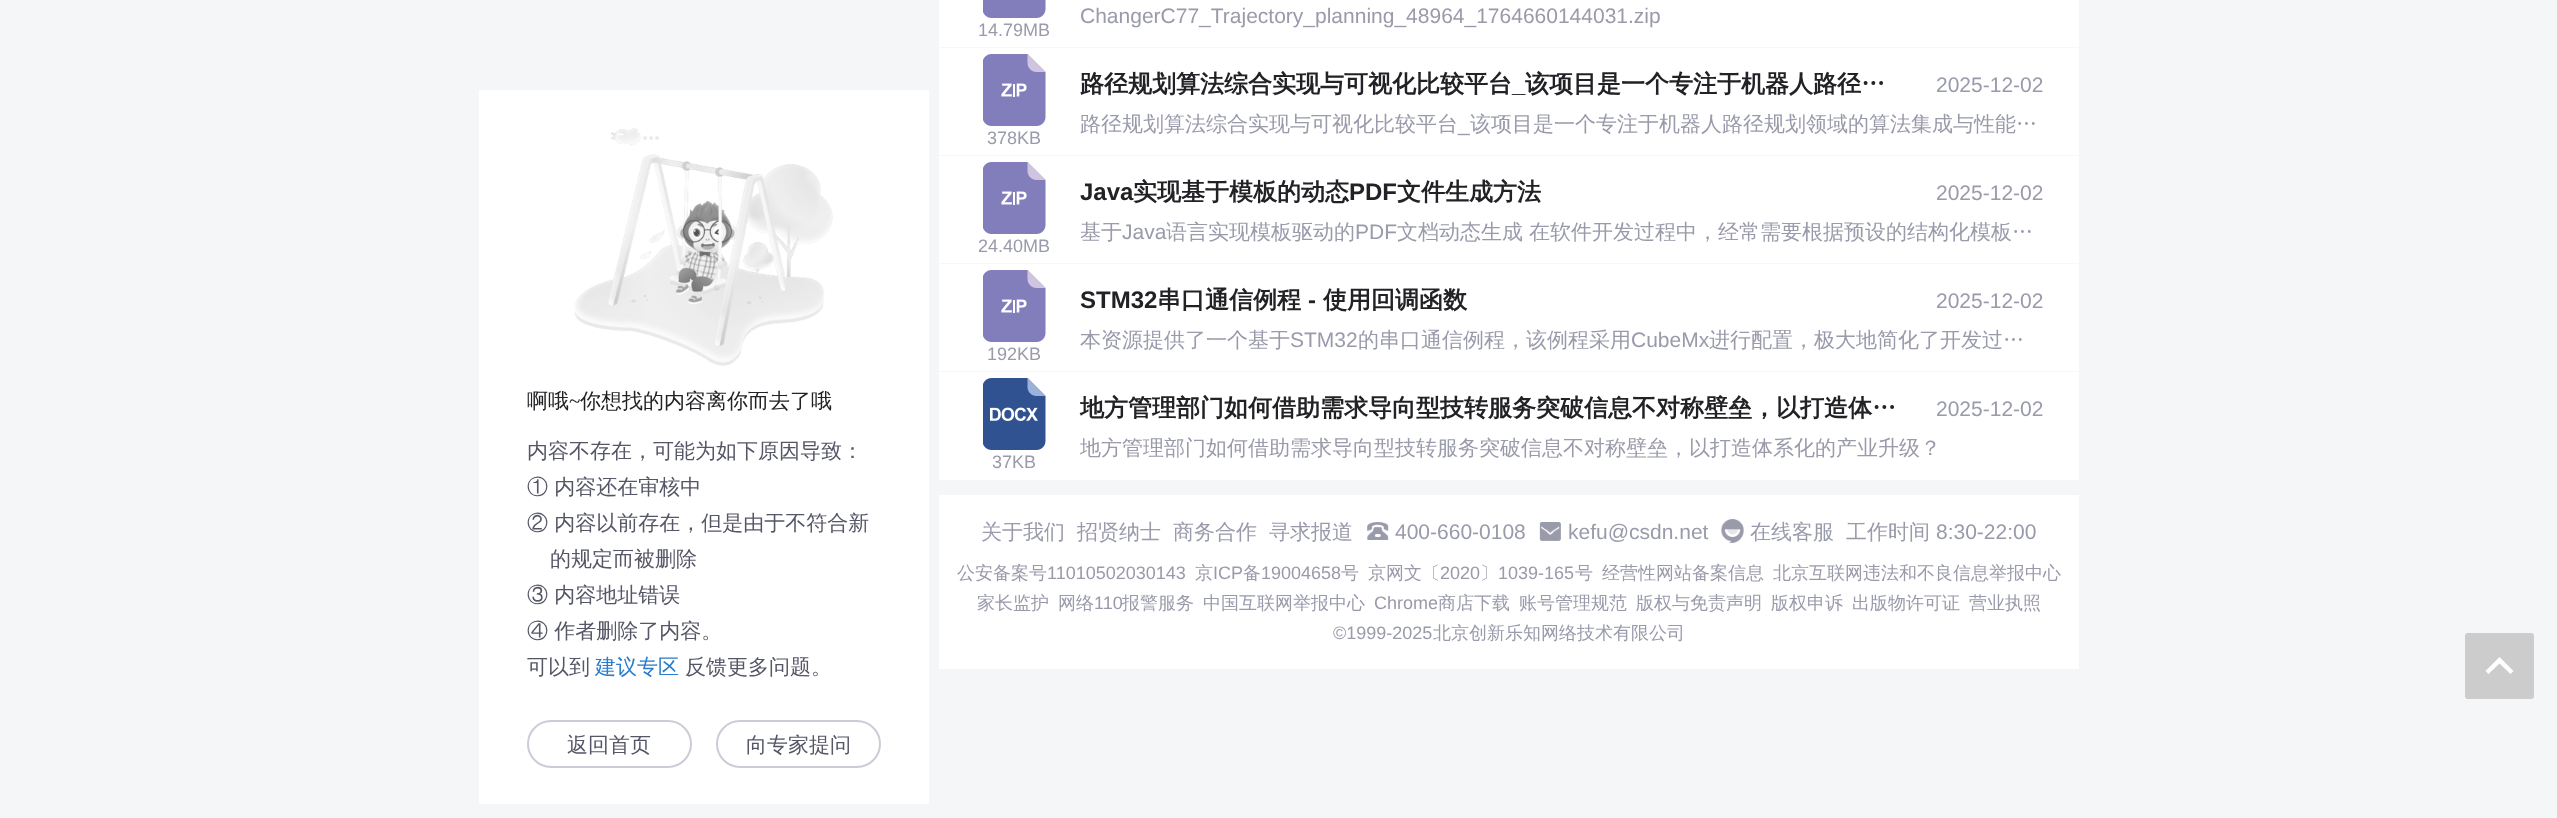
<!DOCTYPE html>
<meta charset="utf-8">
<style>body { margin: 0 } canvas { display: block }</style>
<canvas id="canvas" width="2557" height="818"></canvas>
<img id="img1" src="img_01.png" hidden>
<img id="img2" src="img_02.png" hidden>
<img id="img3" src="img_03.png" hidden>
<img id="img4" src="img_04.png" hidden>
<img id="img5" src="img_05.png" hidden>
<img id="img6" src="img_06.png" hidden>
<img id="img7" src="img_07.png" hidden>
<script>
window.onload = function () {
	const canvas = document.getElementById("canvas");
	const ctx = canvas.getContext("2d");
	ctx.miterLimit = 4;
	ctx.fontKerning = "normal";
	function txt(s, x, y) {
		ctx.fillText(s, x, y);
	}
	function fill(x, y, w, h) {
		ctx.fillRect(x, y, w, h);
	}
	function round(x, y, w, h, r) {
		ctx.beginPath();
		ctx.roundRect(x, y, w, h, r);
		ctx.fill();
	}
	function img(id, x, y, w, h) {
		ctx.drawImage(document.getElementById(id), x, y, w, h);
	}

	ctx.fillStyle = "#F5F6F7";
	fill(0, 0, 2557, 818);
	ctx.fillStyle = "#FFFFFF";
	fill(479, 90, 450, 714);
	img("img1", 574, 128, 259, 238);
	ctx.beginPath();
	ctx.roundRect(528, 721, 163, 46, 23);
	ctx.strokeStyle = "#CCCCD8";
	ctx.lineWidth = 2;
	ctx.stroke();
	ctx.beginPath();
	ctx.roundRect(717, 721, 163, 46, 23);
	ctx.stroke();
	fill(939, 0, 1140, 47);
	ctx.fillStyle = "#F7F7FC";
	fill(939, 47, 1140, 1);
	img("img2", 983, 0, 63, 18);
	ctx.fillStyle = "#FFFFFF";
	fill(939, 48, 1140, 107);
	ctx.fillStyle = "#F7F7FC";
	fill(939, 155, 1140, 1);
	img("img3", 983, 54, 63, 72);
	ctx.fillStyle = "#FFFFFF";
	fill(939, 156, 1140, 107);
	ctx.fillStyle = "#F7F7FC";
	fill(939, 263, 1140, 1);
	img("img3", 983, 162, 63, 72);
	ctx.fillStyle = "#FFFFFF";
	fill(939, 264, 1140, 107);
	ctx.fillStyle = "#F7F7FC";
	fill(939, 371, 1140, 1);
	img("img3", 983, 270, 63, 72);
	ctx.fillStyle = "#FFFFFF";
	fill(939, 372, 1140, 108);
	img("img4", 983, 378, 63, 72);
	fill(939, 495, 1140, 174);
	img("img5", 1367, 522, 22, 18);
	img("img6", 1539, 522, 22, 19);
	img("img7", 1721, 519, 23, 24);
	ctx.fillStyle = "#CCCCCC";
	round(2465, 633, 69, 66, 3);
	ctx.fillStyle = "#FFFFFF";
	ctx.beginPath();
	ctx.moveTo(2499.5, 657);
	ctx.lineTo(2513.5, 671);
	ctx.lineTo(2510.5, 674);
	ctx.lineTo(2499.5, 663.5);
	ctx.lineTo(2488.5, 674);
	ctx.lineTo(2485.5, 671);
	ctx.closePath();
	ctx.fill("evenodd");
	ctx.font = "500 21px WenQuanYi Zen Hei";
	ctx.fillStyle = "#222226";
	txt("啊哦", 527, 408);
	ctx.font = "21px Liberation Serif";
	txt("~", 569, 408);
	ctx.font = "500 21px WenQuanYi Zen Hei";
	txt("你想找的内容离你而去了哦", 580, 408);
	ctx.fillStyle = "#555666";
	txt("内容不存在，可能为如下原因导致：", 527, 458);
	txt("① 内容还在审核中", 527, 494);
	txt("② 内容以前存在，但是由于不符合新", 527, 530);
	txt("的规定而被删除", 550, 566);
	txt("③ 内容地址错误", 527, 602);
	txt("④ 作者删除了内容。", 527, 638);
	txt("可以到", 527, 674);
	ctx.fillStyle = "#277CCC";
	txt("建议专区", 595, 674);
	ctx.fillStyle = "#555666";
	txt("反馈更多问题。", 685, 674);
	txt("返回首页", 567, 752);
	txt("向专家提问", 746, 752);
	ctx.font = "21px Liberation Sans";
	ctx.fillStyle = "#999AAA";
	txt("ChangerC77_Trajectory_planning_48964_1764660144031.zip", 1080, 23);
	ctx.font = "18px Liberation Sans";
	txt("14.79MB", 978, 36);
	ctx.font = "bold 24px WenQuanYi Zen Hei";
	ctx.fillStyle = "#222226";
	txt("路径规划算法综合实现与可视化比较平台", 1080, 92);
	ctx.font = "bold 24px Liberation Sans";
	txt("_", 1512, 92);
	ctx.font = "bold 24px WenQuanYi Zen Hei";
	txt("该项目是一个专注于机器人路径…", 1525, 92);
	ctx.font = "21px Liberation Sans";
	ctx.fillStyle = "#999AAA";
	txt("2025-12-02", 1936, 92);
	ctx.font = "500 21px WenQuanYi Zen Hei";
	txt("路径规划算法综合实现与可视化比较平台", 1080, 131);
	ctx.font = "21px Liberation Sans";
	txt("_", 1458, 131);
	ctx.font = "500 21px WenQuanYi Zen Hei";
	txt("该项目是一个专注于机器人路径规划领域的算法集成与性能…", 1470, 131);
	ctx.font = "18px Liberation Sans";
	txt("378KB", 987, 144);
	ctx.font = "bold 24px Liberation Sans";
	ctx.fillStyle = "#222226";
	txt("Java", 1080, 200);
	ctx.font = "bold 24px WenQuanYi Zen Hei";
	txt("实现基于模板的动态", 1133, 200);
	ctx.font = "bold 24px Liberation Sans";
	txt("PDF", 1349, 200);
	ctx.font = "bold 24px WenQuanYi Zen Hei";
	txt("文件生成方法", 1397, 200);
	ctx.font = "21px Liberation Sans";
	ctx.fillStyle = "#999AAA";
	txt("2025-12-02", 1936, 200);
	ctx.font = "500 21px WenQuanYi Zen Hei";
	txt("基于", 1080, 239);
	ctx.font = "21px Liberation Sans";
	txt("Java", 1122, 239);
	ctx.font = "500 21px WenQuanYi Zen Hei";
	txt("语言实现模板驱动的", 1166, 239);
	ctx.font = "21px Liberation Sans";
	txt("PDF", 1355, 239);
	ctx.font = "500 21px WenQuanYi Zen Hei";
	txt("文档动态生成", 1397, 239);
	txt("在软件开发过程中，经常需要根据预设的结构化模板…", 1529, 239);
	ctx.font = "18px Liberation Sans";
	txt("24.40MB", 978, 252);
	ctx.font = "bold 24px Liberation Sans";
	ctx.fillStyle = "#222226";
	txt("STM32", 1080, 308);
	ctx.font = "bold 24px WenQuanYi Zen Hei";
	txt("串口通信例程", 1157, 308);
	ctx.font = "bold 24px Liberation Sans";
	txt("-", 1308, 308);
	ctx.font = "bold 24px WenQuanYi Zen Hei";
	txt("使用回调函数", 1323, 308);
	ctx.font = "21px Liberation Sans";
	ctx.fillStyle = "#999AAA";
	txt("2025-12-02", 1936, 308);
	ctx.font = "500 21px WenQuanYi Zen Hei";
	txt("本资源提供了一个基于", 1080, 347);
	ctx.font = "21px Liberation Sans";
	txt("STM32", 1290, 347);
	ctx.font = "500 21px WenQuanYi Zen Hei";
	txt("的串口通信例程，该例程采用", 1358, 347);
	ctx.font = "21px Liberation Sans";
	txt("CubeMx", 1631, 347);
	ctx.font = "500 21px WenQuanYi Zen Hei";
	txt("进行配置，极大地简化了开发过…", 1709, 347);
	ctx.font = "18px Liberation Sans";
	txt("192KB", 987, 360);
	ctx.font = "bold 24px WenQuanYi Zen Hei";
	ctx.fillStyle = "#222226";
	txt("地方管理部门如何借助需求导向型技转服务突破信息不对称壁垒，以打造体…", 1080, 416);
	ctx.font = "21px Liberation Sans";
	ctx.fillStyle = "#999AAA";
	txt("2025-12-02", 1936, 416);
	ctx.font = "500 21px WenQuanYi Zen Hei";
	txt("地方管理部门如何借助需求导向型技转服务突破信息不对称壁垒，以打造体系化的产业升级？", 1080, 455);
	ctx.font = "18px Liberation Sans";
	txt("37KB", 992, 468);
	ctx.font = "500 21px WenQuanYi Zen Hei";
	txt("关于我们", 981, 539);
	txt("招贤纳士", 1077, 539);
	txt("商务合作", 1173, 539);
	txt("寻求报道", 1269, 539);
	ctx.font = "21px Liberation Sans";
	txt("400-660-0108", 1395, 539);
	txt("kefu@csdn.net", 1568, 539);
	ctx.font = "500 21px WenQuanYi Zen Hei";
	txt("在线客服", 1750, 539);
	txt("工作时间", 1846, 539);
	ctx.font = "21px Liberation Sans";
	txt("8:30-22:00", 1936, 539);
	ctx.font = "500 18px WenQuanYi Zen Hei";
	txt("公安备案号", 957, 579);
	ctx.font = "18px Liberation Sans";
	txt("11010502030143", 1047, 579);
	ctx.font = "500 18px WenQuanYi Zen Hei";
	txt("京", 1195, 579);
	ctx.font = "18px Liberation Sans";
	txt("ICP", 1213, 579);
	ctx.font = "500 18px WenQuanYi Zen Hei";
	txt("备", 1243, 579);
	ctx.font = "18px Liberation Sans";
	txt("19004658", 1261, 579);
	ctx.font = "500 18px WenQuanYi Zen Hei";
	txt("号", 1341, 579);
	txt("京网文〔", 1368, 579);
	ctx.font = "18px Liberation Sans";
	txt("2020", 1440, 579);
	ctx.font = "500 18px WenQuanYi Zen Hei";
	txt("〕", 1480, 579);
	ctx.font = "18px Liberation Sans";
	txt("1039-165", 1498, 579);
	ctx.font = "500 18px WenQuanYi Zen Hei";
	txt("号", 1575, 579);
	txt("经营性网站备案信息", 1602, 579);
	txt("北京互联网违法和不良信息举报中心", 1773, 579);
	txt("家长监护", 977, 609);
	txt("网络", 1058, 609);
	ctx.font = "18px Liberation Sans";
	txt("110", 1094, 609);
	ctx.font = "500 18px WenQuanYi Zen Hei";
	txt("报警服务", 1122, 609);
	txt("中国互联网举报中心", 1203, 609);
	ctx.font = "18px Liberation Sans";
	txt("Chrome", 1374, 609);
	ctx.font = "500 18px WenQuanYi Zen Hei";
	txt("商店下载", 1438, 609);
	txt("账号管理规范", 1519, 609);
	txt("版权与免责声明", 1636, 609);
	txt("版权申诉", 1771, 609);
	txt("出版物许可证", 1852, 609);
	txt("营业执照", 1969, 609);
	ctx.font = "18px Liberation Sans";
	txt("©1999-2025", 1333, 639);
	ctx.font = "500 18px WenQuanYi Zen Hei";
	txt("北京创新乐知网络技术有限公司", 1433, 639);
};
</script>
